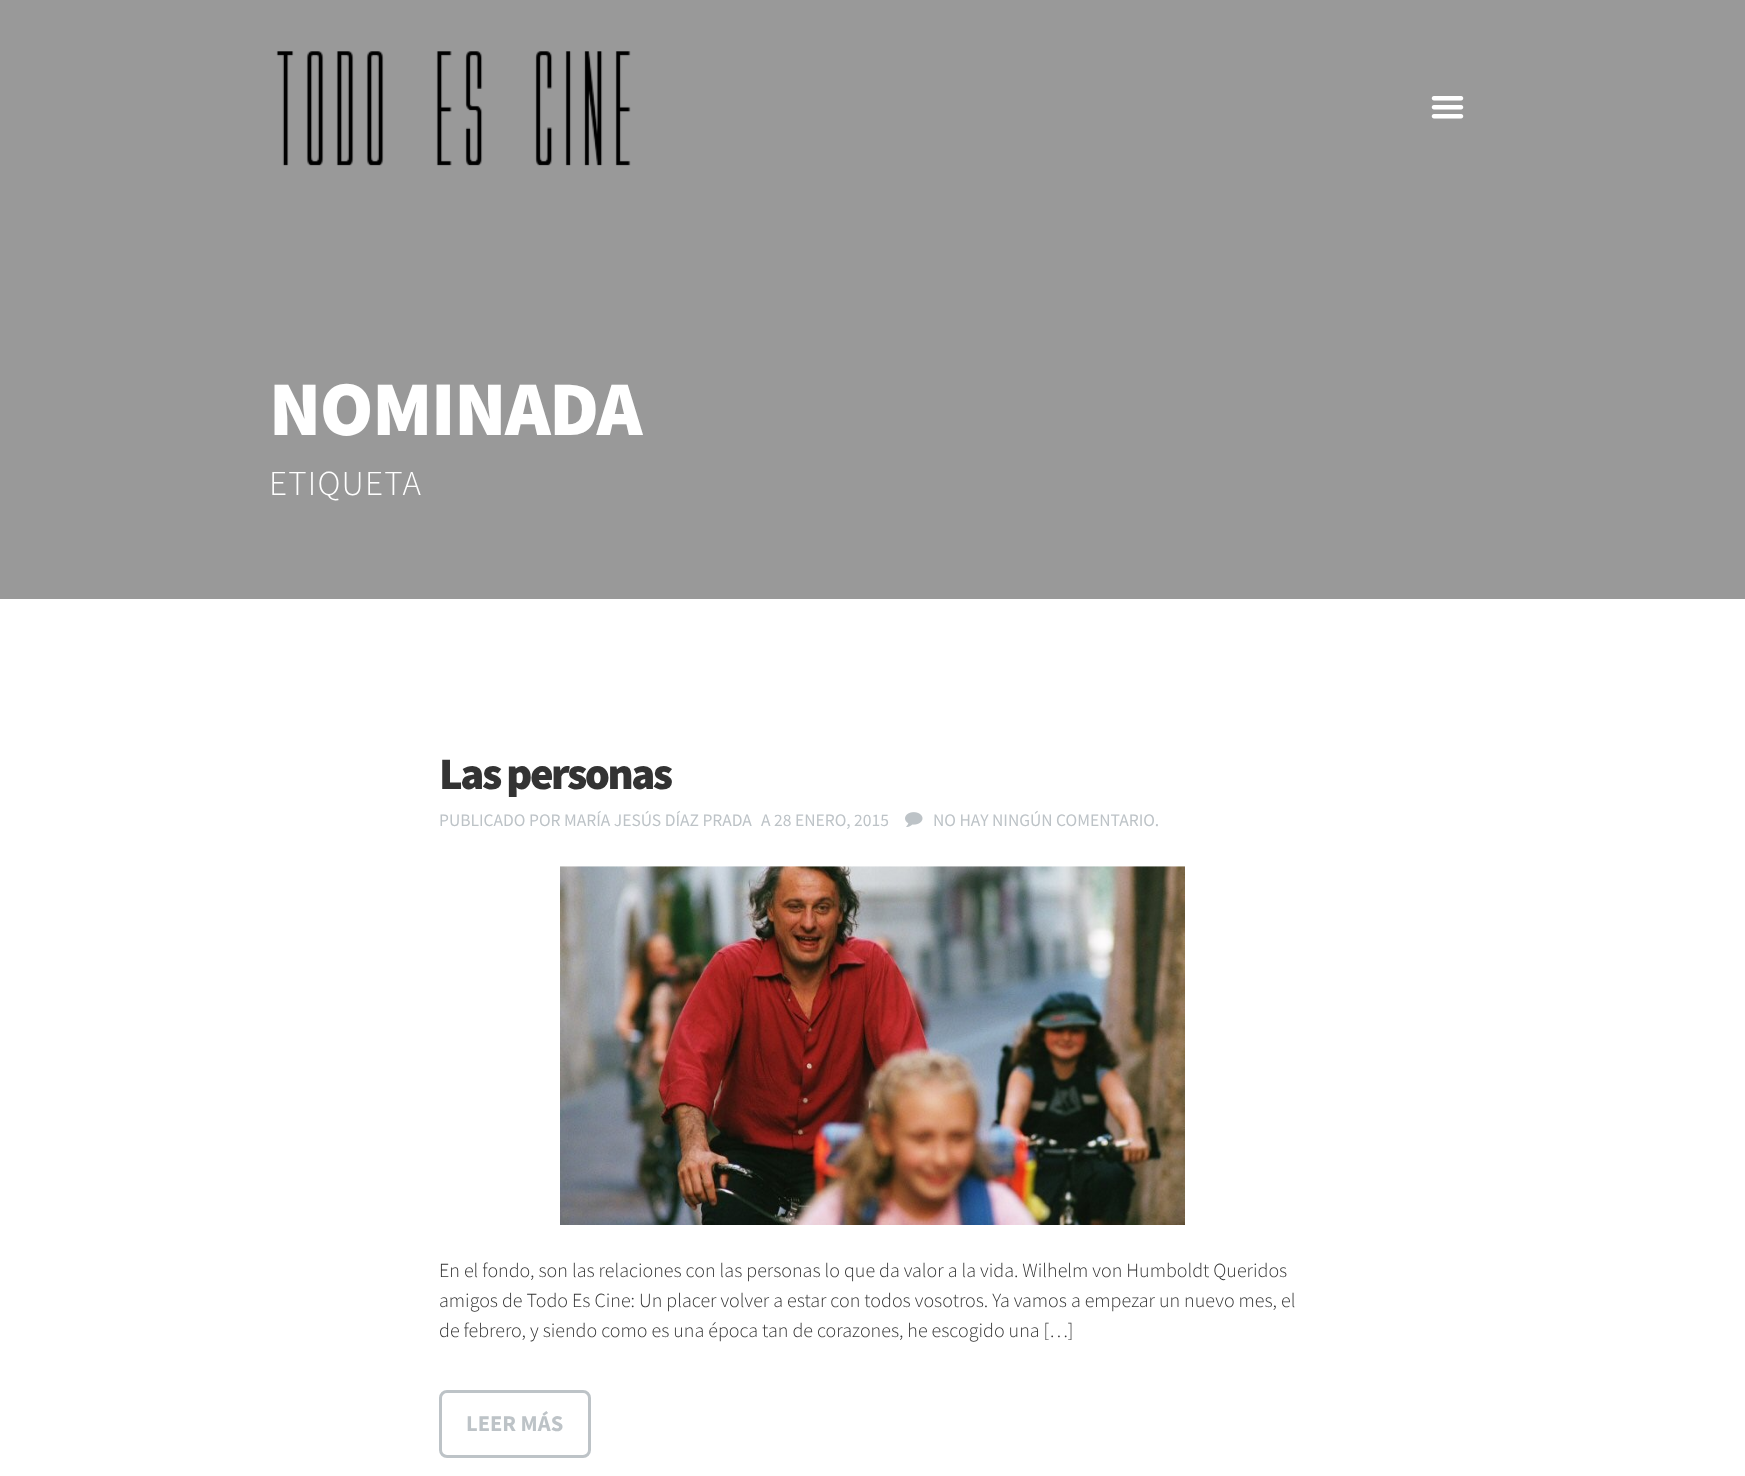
<!DOCTYPE html>
<meta charset="utf-8">
<style>body { margin: 0 } canvas { display: block }</style>
<canvas id="canvas" width="1745" height="1476"></canvas>
<img id="img1" src="img_01.png" hidden>
<img id="img2" src="img_02.png" hidden>
<img id="img3" src="img_03.png" hidden>
<img id="img4" src="img_04.png" hidden>
<script>
window.onload = function () {
	const canvas = document.getElementById("canvas");
	const ctx = canvas.getContext("2d");
	ctx.miterLimit = 4;
	ctx.fontKerning = "normal";
	function txt(s, x, y) {
		ctx.fillText(s, x, y);
	}
	function fill(x, y, w, h) {
		ctx.fillRect(x, y, w, h);
	}
	function img(id, x, y, w, h) {
		ctx.drawImage(document.getElementById(id), x, y, w, h);
	}

	ctx.fillStyle = "#FFFFFF";
	fill(0, 0, 1745, 1476);
	ctx.fillStyle = "#999999";
	fill(0, 0, 1745, 599);
	img("img1", 276, 51, 355, 115);
	img("img2", 1431, 96, 33, 23);
	img("img3", 905, 812, 18, 15);
	img("img4", 560, 866, 625, 359);
	ctx.beginPath();
	ctx.roundRect(440.5, 1391.5, 149, 65, 6.5);
	ctx.strokeStyle = "#BDC3C7";
	ctx.lineWidth = 3;
	ctx.stroke();
	ctx.letterSpacing = "-1.25px";
	ctx.font = "900 77.5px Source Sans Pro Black";
	ctx.fillStyle = "#FFFFFF";
	txt("NOMINADA", 269, 435);
	ctx.letterSpacing = "1.25px";
	ctx.font = "300 35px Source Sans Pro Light";
	txt("ETIQUETA", 269, 495);
	ctx.letterSpacing = "-2.5px";
	ctx.font = "900 45px Source Sans Pro Black";
	ctx.fillStyle = "#333333";
	txt("Las personas", 439, 789);
	ctx.letterSpacing = "0px";
	ctx.font = "17.5px Source Sans Pro";
	ctx.fillStyle = "#BDC3C7";
	txt("PUBLICADO POR MARÍA JESÚS DÍAZ PRADA", 439, 826);
	txt("A 28 ENERO, 2015", 761, 826);
	txt("NO HAY NINGÚN COMENTARIO.", 933, 826);
	ctx.font = "300 20px Source Sans Pro Light";
	ctx.fillStyle = "#333333";
	txt("En el fondo, son las relaciones con las personas lo que da valor a la vida. Wilhelm von Humboldt Queridos", 439, 1277);
	txt("amigos de Todo Es Cine: Un placer volver a estar con todos vosotros. Ya vamos a empezar un nuevo mes, el", 439, 1307);
	txt("de febrero, y siendo como es una época tan de corazones, he escogido una […]", 439, 1337);
	ctx.font = "bold 22.5px Source Sans Pro";
	ctx.fillStyle = "#BDC3C7";
	txt("LEER MÁS", 466, 1431);
};
</script>
